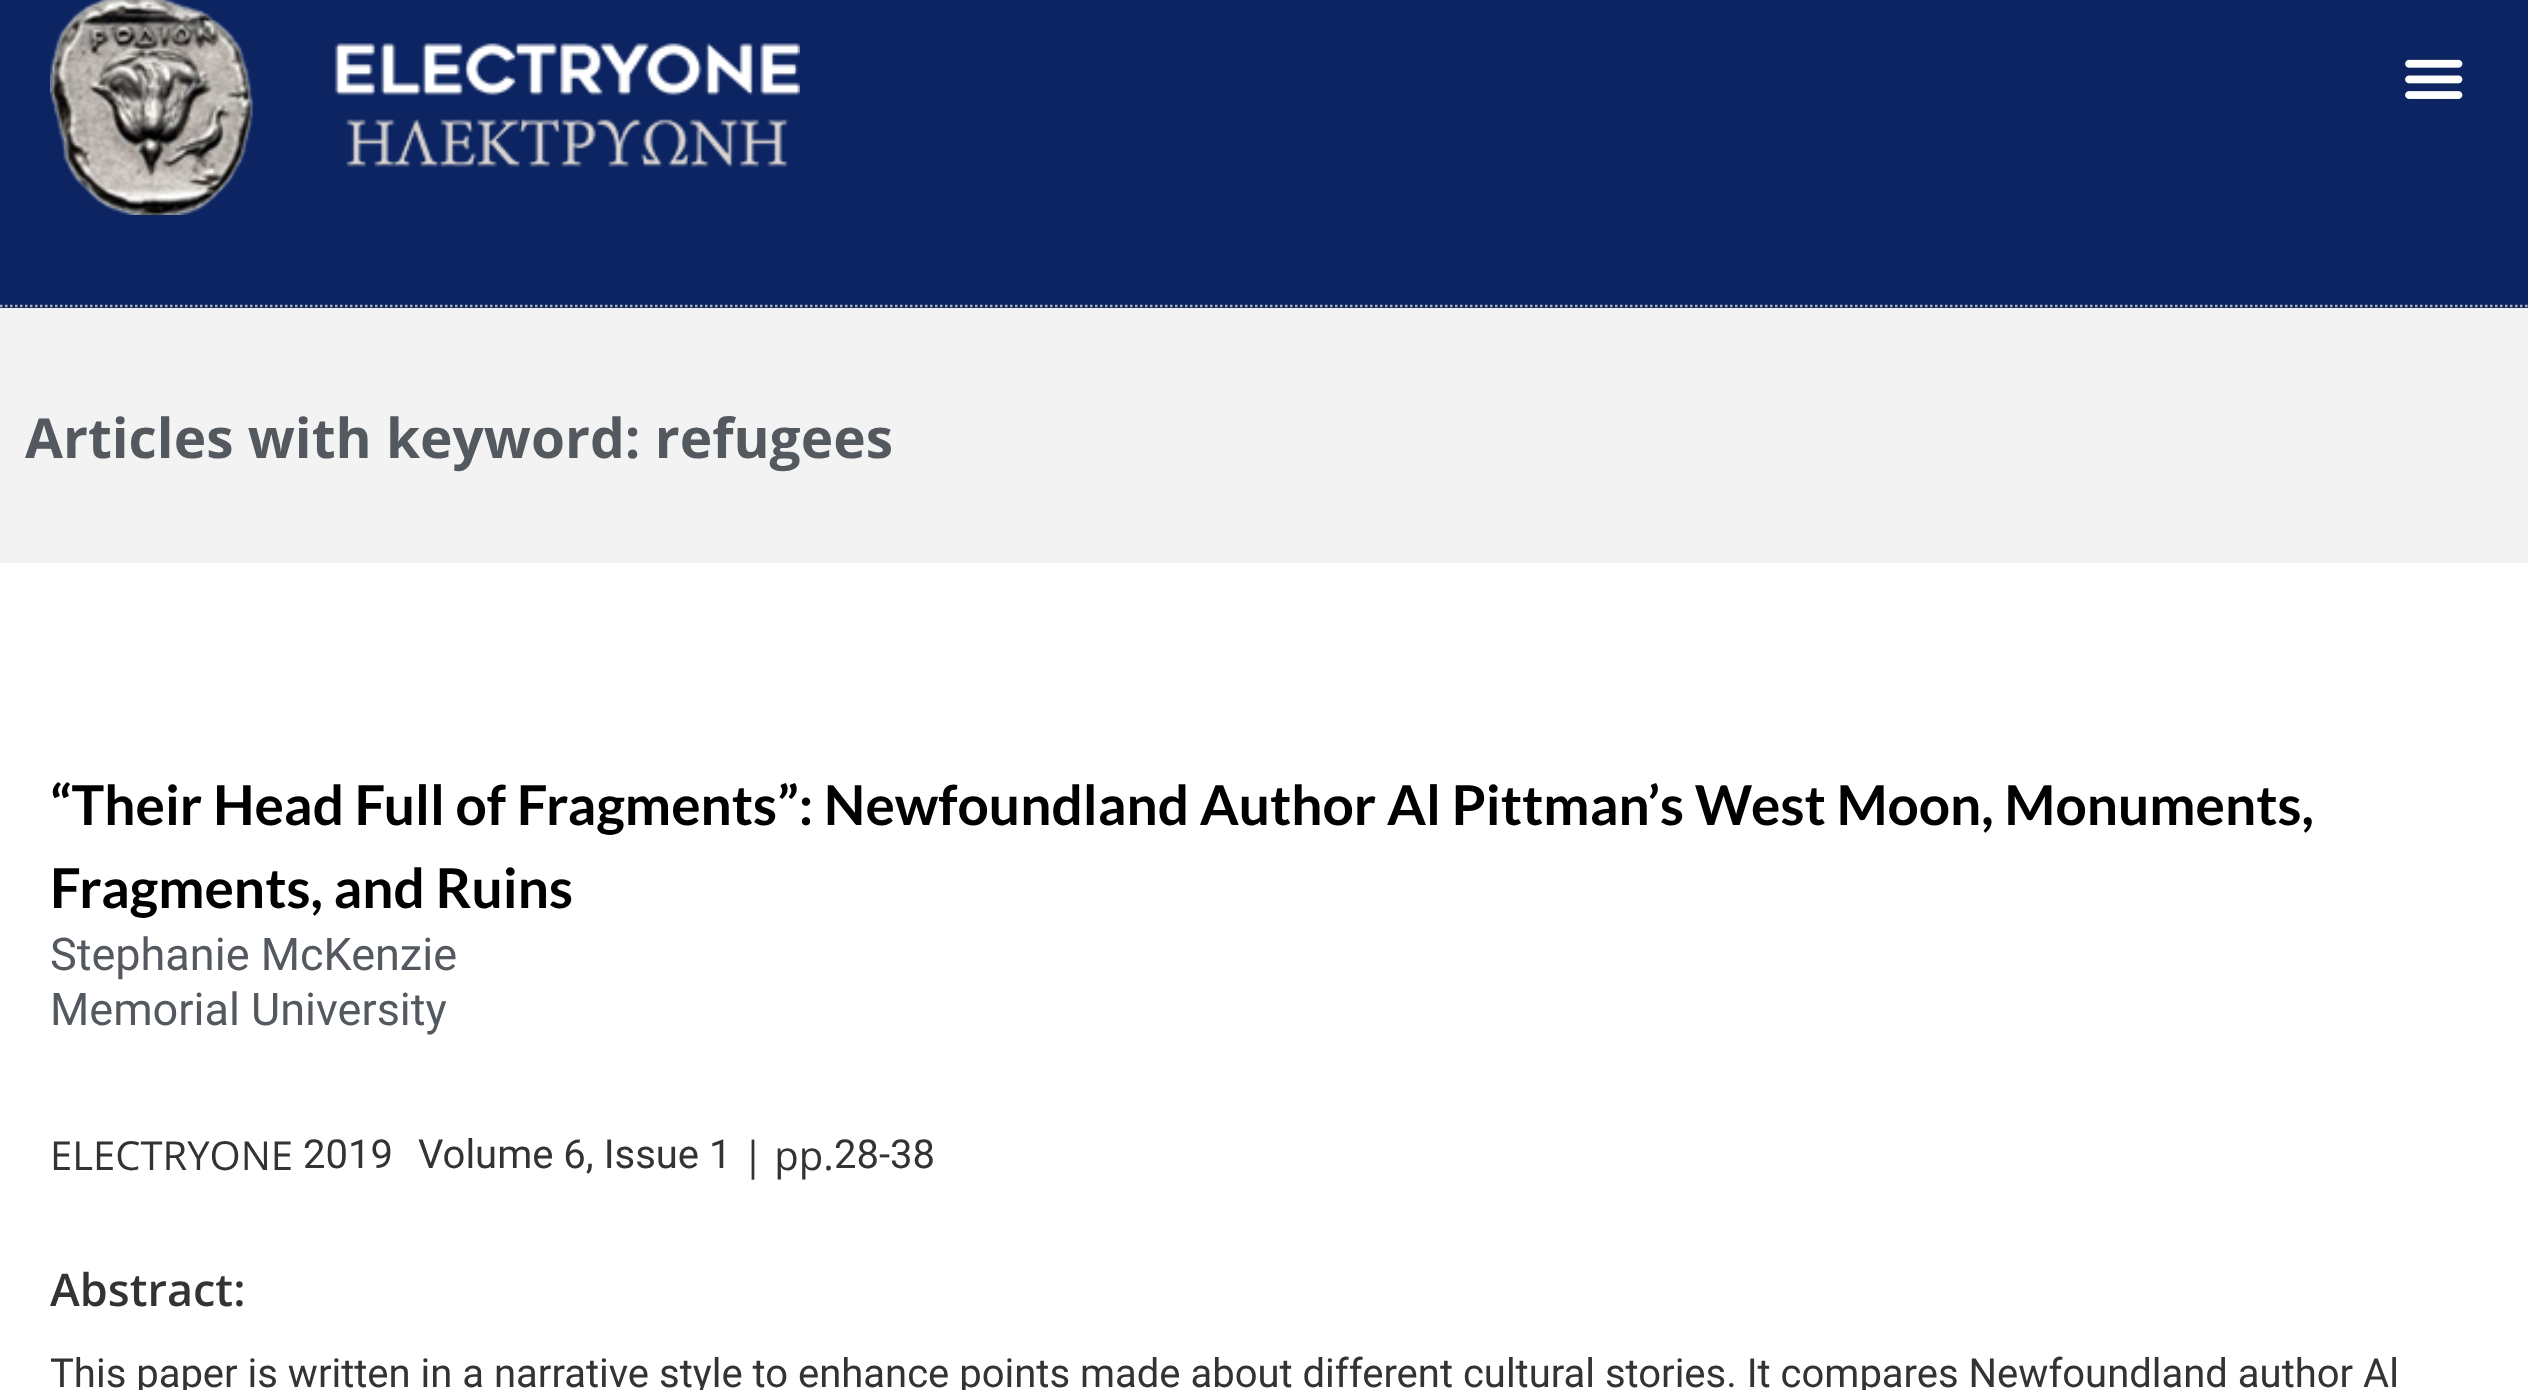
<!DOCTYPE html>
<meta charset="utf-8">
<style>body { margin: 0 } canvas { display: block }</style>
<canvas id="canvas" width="2528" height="1390"></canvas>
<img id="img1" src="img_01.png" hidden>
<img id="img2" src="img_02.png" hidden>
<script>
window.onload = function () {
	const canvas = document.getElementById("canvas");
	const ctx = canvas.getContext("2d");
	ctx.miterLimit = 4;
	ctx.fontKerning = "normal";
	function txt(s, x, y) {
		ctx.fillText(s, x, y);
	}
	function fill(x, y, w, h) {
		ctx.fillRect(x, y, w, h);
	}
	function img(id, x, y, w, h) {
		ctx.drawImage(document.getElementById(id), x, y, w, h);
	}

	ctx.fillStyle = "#FFFFFF";
	fill(0, 0, 2528, 1390);
	ctx.fillStyle = "#0C2461";
	fill(0, 0, 2528, 308);
	ctx.beginPath();
	ctx.moveTo(0, 306);
	ctx.lineTo(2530, 306);
	ctx.strokeStyle = "#AFAFAF";
	ctx.lineWidth = 2.5;
	ctx.setLineDash([2.5, 2.5]);
	ctx.stroke();
	img("img1", 50, 0, 750, 215);
	img("img2", 2405, 59, 58, 40);
	ctx.fillStyle = "#F3F3F3";
	fill(0, 308, 2528, 255);
	ctx.font = "bold 55px Open Sans";
	ctx.fillStyle = "#54595F";
	txt("Articles with keyword: refugees", 25, 458);
	ctx.font = "bold 55px Lato";
	ctx.fillStyle = "#000000";
	txt("“Their Head Full of Fragments”: Newfoundland Author Al Pittman’s West Moon, Monuments,", 50, 825);
	txt("Fragments, and Ruins", 50, 908);
	ctx.font = "45px Roboto";
	ctx.fillStyle = "#54595F";
	txt("Stephanie McKenzie", 50, 970);
	txt("Memorial University", 50, 1025);
	ctx.font = "40px Open Sans";
	ctx.fillStyle = "#333333";
	txt("ELECTRYONE", 50, 1170);
	ctx.font = "40px Roboto";
	txt("2019", 303, 1168);
	txt("Volume 6, Issue 1", 418, 1168);
	ctx.font = "40px Open Sans";
	txt("| pp.", 742, 1170);
	ctx.font = "40px Roboto";
	txt("28-38", 834, 1168);
	ctx.font = "600 45px Open Sans";
	txt("Abstract:", 50, 1306);
	ctx.font = "40px Roboto";
	txt("This paper is written in a narrative style to enhance points made about different cultural stories. It compares Newfoundland author Al", 50, 1387);
};
</script>
